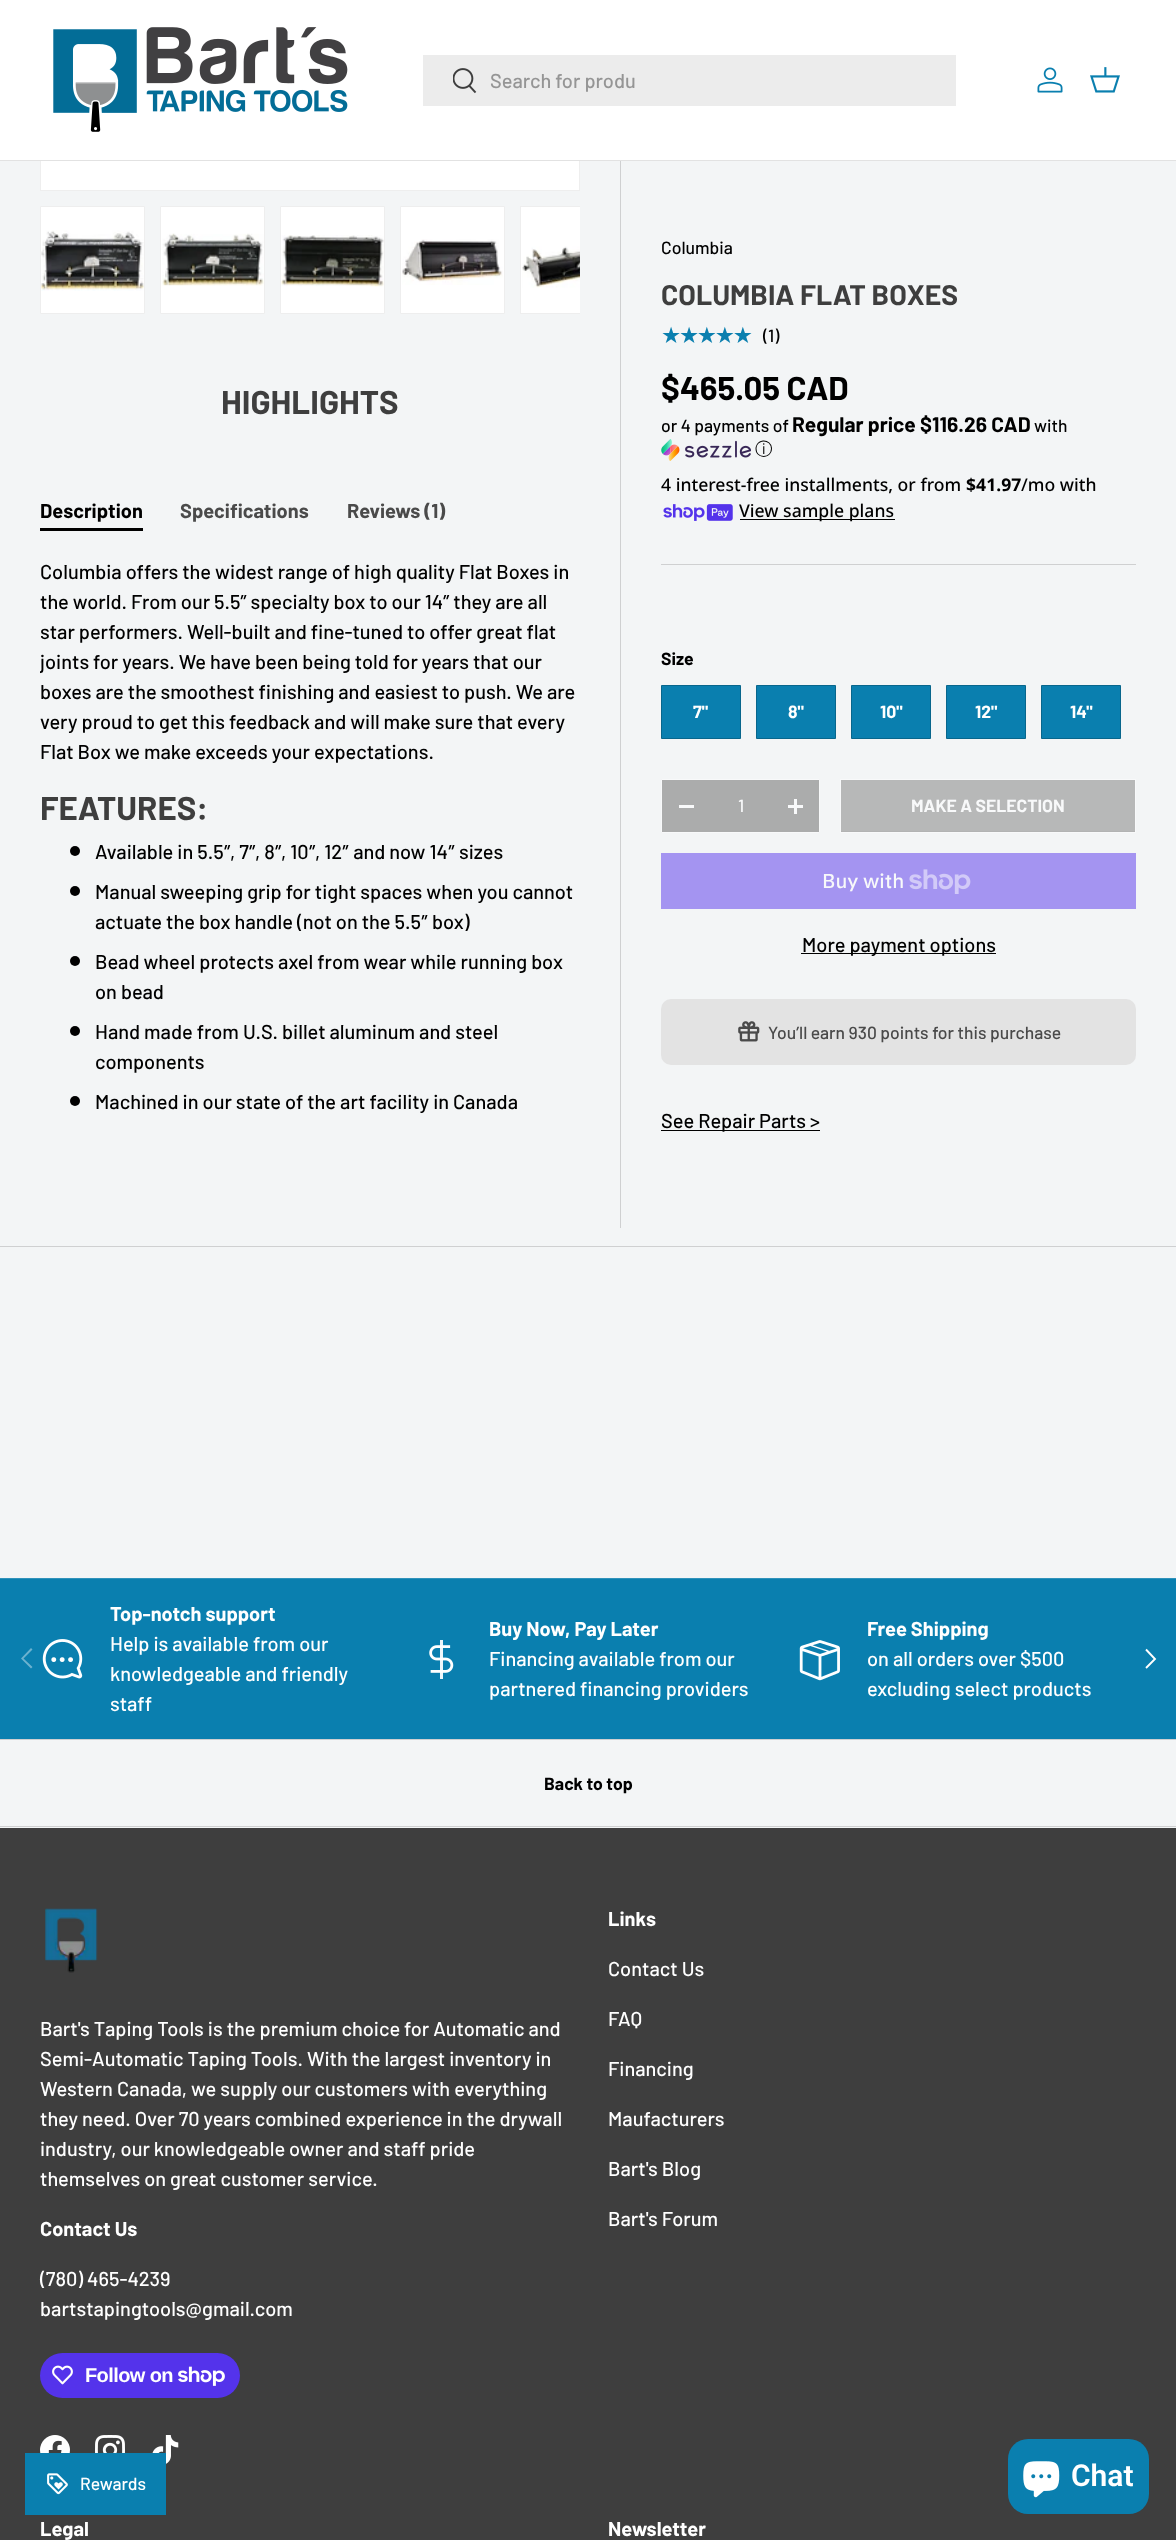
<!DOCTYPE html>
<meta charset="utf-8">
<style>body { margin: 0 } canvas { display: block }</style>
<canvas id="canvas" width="1176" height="2540"></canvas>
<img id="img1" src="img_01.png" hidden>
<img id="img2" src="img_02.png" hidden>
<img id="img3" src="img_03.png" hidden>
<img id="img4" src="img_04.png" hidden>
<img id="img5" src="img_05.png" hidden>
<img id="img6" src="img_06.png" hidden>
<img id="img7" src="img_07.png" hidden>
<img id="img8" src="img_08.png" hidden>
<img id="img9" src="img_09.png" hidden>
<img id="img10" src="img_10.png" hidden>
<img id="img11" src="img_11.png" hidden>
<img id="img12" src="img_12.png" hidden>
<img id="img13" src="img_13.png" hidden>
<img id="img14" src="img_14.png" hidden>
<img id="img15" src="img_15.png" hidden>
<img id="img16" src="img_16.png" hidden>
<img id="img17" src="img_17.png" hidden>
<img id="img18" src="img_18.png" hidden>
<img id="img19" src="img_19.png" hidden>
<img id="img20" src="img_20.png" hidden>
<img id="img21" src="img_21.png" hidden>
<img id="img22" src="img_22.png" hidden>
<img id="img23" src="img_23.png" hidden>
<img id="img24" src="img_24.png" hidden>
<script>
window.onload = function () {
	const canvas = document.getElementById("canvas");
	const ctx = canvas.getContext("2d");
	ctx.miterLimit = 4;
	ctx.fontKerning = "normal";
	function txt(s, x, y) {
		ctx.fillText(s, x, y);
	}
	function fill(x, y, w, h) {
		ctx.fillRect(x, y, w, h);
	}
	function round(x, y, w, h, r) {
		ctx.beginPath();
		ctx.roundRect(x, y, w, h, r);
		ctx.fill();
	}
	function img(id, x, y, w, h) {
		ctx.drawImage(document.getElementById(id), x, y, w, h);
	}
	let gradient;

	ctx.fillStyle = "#F3F5F6";
	fill(0, 0, 1176, 2540);
	ctx.fillStyle = "#FFFFFF";
	fill(41, 161, 538, 29);
	ctx.strokeStyle = "#EEEEEE";
	ctx.strokeRect(40.5, -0.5, 539, 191);
	fill(0, 0, 1176, 160);
	ctx.fillStyle = "#E2E2E2";
	fill(0, 160, 1176, 1);
	img("img1", 53, 27, 295, 105);
	ctx.fillStyle = "#ECECEC";
	fill(423, 55, 533, 51);
	img("img2", 453, 68, 24, 26);
	img("img3", 1037, 67, 26, 26);
	img("img4", 1090, 67, 30, 26);
	ctx.fillStyle = "#000000";
	fill(40, 528, 103, 3);
	ctx.beginPath();
	ctx.arc(75, 851, 5, 0, Math.PI * 2);
	ctx.fill();
	ctx.beginPath();
	ctx.arc(75, 891, 5, 0, Math.PI * 2);
	ctx.fill();
	ctx.beginPath();
	ctx.arc(75, 961, 5, 0, Math.PI * 2);
	ctx.fill();
	ctx.beginPath();
	ctx.arc(75, 1031, 5, 0, Math.PI * 2);
	ctx.fill();
	ctx.beginPath();
	ctx.arc(75, 1101, 5, 0, Math.PI * 2);
	ctx.fill();
	ctx.fillStyle = "#FFFFFF";
	ctx.beginPath();
	ctx.rect(40.5, 206.5, 104, 107);
	ctx.fill();
	ctx.stroke();
	img("img5", 41, 230, 103, 61);
	ctx.beginPath();
	ctx.rect(160.5, 206.5, 104, 107);
	ctx.fill();
	ctx.stroke();
	img("img6", 162, 233, 102, 53);
	ctx.beginPath();
	ctx.rect(280.5, 206.5, 104, 107);
	ctx.fill();
	ctx.stroke();
	img("img7", 281, 235, 103, 52);
	ctx.beginPath();
	ctx.rect(400.5, 206.5, 104, 107);
	ctx.fill();
	ctx.stroke();
	img("img8", 402, 239, 101, 46);
	fill(521, 207, 59, 106);
	ctx.save();
	ctx.beginPath();
	ctx.rect(40, 206, 540, 114);
	ctx.clip();
	ctx.strokeRect(520.5, 206.5, 104, 107);
	ctx.restore();
	img("img9", 522, 246, 58, 42);
	ctx.fillStyle = "#CFD0D1";
	fill(620, 161, 1, 1067);
	img("img10", 661, 439, 90, 22);
	img("img11", 663, 504, 70, 17);
	ctx.fillStyle = "#000000";
	fill(740, 519, 155, 1);
	ctx.fillStyle = "#CFD0D1";
	fill(661, 564, 475, 1);
	ctx.fillStyle = "#0A7FAF";
	ctx.beginPath();
	ctx.rect(661.5, 685.5, 79, 53);
	ctx.fill();
	ctx.strokeStyle = "#08668C";
	ctx.stroke();
	ctx.beginPath();
	ctx.rect(756.5, 685.5, 79, 53);
	ctx.fill();
	ctx.stroke();
	ctx.beginPath();
	ctx.rect(851.5, 685.5, 79, 53);
	ctx.fill();
	ctx.stroke();
	ctx.beginPath();
	ctx.rect(946.5, 685.5, 79, 53);
	ctx.fill();
	ctx.stroke();
	ctx.beginPath();
	ctx.rect(1041.5, 685.5, 79, 53);
	ctx.fill();
	ctx.stroke();
	ctx.fillStyle = "#ABACAC";
	ctx.beginPath();
	ctx.rect(661.5, 779.5, 158, 53);
	ctx.fill();
	ctx.strokeStyle = "#F8F9FA";
	ctx.stroke();
	ctx.fillStyle = "#F8F9FA";
	fill(679, 805, 15, 3);
	fill(788, 805, 15, 3);
	fill(794, 799, 3, 15);
	ctx.fillStyle = "#B2B3B3";
	fill(841, 831, 294, 1);
	gradient = ctx.createLinearGradient(861, 701, 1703, 911);
	gradient.addColorStop(0.6, "#B7B8B8");
	gradient.addColorStop(0.6, "#ABACAC");
	gradient.addColorStop(1, "#ABACAC");
	ctx.fillStyle = gradient;
	fill(841, 780, 294, 51);
	ctx.strokeRect(840.5, 779.5, 295, 53);
	ctx.fillStyle = "#A494F1";
	fill(661, 853, 475, 56);
	img("img12", 909, 869, 62, 25);
	ctx.fillStyle = "#000000";
	fill(801, 953, 195, 1);
	ctx.fillStyle = "#E3E3E3";
	round(661, 999, 475, 66, 10);
	img("img13", 738, 1021, 22, 21);
	ctx.fillStyle = "#000000";
	fill(661, 1130, 159, 1);
	ctx.fillStyle = "#CFD0D1";
	fill(0, 1246, 1176, 1);
	ctx.fillStyle = "#0A7FAF";
	fill(0, 1579, 1176, 160);
	ctx.fillStyle = "#2F92BB";
	fill(0, 1578, 1176, 1);
	img("img14", 42, 1639, 41, 40);
	img("img15", 429, 1640, 25, 39);
	img("img16", 799, 1640, 41, 41);
	ctx.fillStyle = "#6CB2CF";
	ctx.beginPath();
	ctx.moveTo(21, 1658.5);
	ctx.lineTo(31, 1648);
	ctx.lineTo(32.5, 1649.5);
	ctx.lineTo(23.5, 1658.5);
	ctx.lineTo(32.5, 1667);
	ctx.lineTo(31, 1668.5);
	ctx.closePath();
	ctx.fill();
	ctx.beginPath();
	ctx.moveTo(1146, 1649.5);
	ctx.lineTo(1155, 1659);
	ctx.lineTo(1146, 1668);
	ctx.strokeStyle = "#FFFFFF";
	ctx.lineWidth = 1.9;
	ctx.stroke();
	ctx.fillStyle = "#CFD0D1";
	fill(0, 1739, 1176, 1);
	fill(0, 1826, 1176, 1);
	ctx.fillStyle = "#3E3E3E";
	fill(0, 1828, 1176, 712);
	img("img17", 45, 1908, 53, 65);
	ctx.fillStyle = "#5433EB";
	round(40, 2353, 200, 45, 22.5);
	img("img18", 52, 2365, 21, 20);
	img("img19", 178, 2366, 47, 20);
	img("img20", 40, 2435, 30, 18);
	img("img21", 95, 2435, 30, 18);
	img("img22", 152, 2435, 27, 29);
	ctx.fillStyle = "#0A7FAF";
	round(1008, 2439, 141, 75, 20);
	img("img23", 1023, 2461, 37, 37);
	fill(25, 2453, 141, 62);
	img("img24", 47, 2473, 21, 22);
	ctx.font = "500 20px Barlow";
	ctx.fillStyle = "#959595";
	txt("Search for produ", 490, 88);
	ctx.font = "bold 33px Barlow";
	ctx.fillStyle = "#3E3E3E";
	txt("HIGHLIGHTS", 221, 414);
	ctx.font = "bold 20px Barlow";
	ctx.fillStyle = "#000000";
	txt("Description", 40, 518);
	ctx.fillStyle = "#4A4A4A";
	txt("Specifications", 180, 518);
	txt("Reviews (1)", 347, 518);
	ctx.font = "500 20px Barlow";
	ctx.fillStyle = "#000000";
	txt("Columbia offers the widest range of high quality Flat Boxes in", 40, 579);
	txt("the world. From our 5.5” specialty box to our 14” they are all", 40, 609);
	txt("star performers. Well-built and fine-tuned to offer great flat", 40, 639);
	ctx.save();
	ctx.beginPath();
	ctx.rect(40, 556, 540, 560);
	ctx.clip();
	txt("joints for years. We have been being told for years that our", 40, 669);
	ctx.restore();
	txt("boxes are the smoothest finishing and easiest to push. We are", 40, 699);
	txt("very proud to get this feedback and will make sure that every", 40, 729);
	txt("Flat Box we make exceeds your expectations.", 40, 759);
	ctx.font = "bold 33px Barlow";
	ctx.fillStyle = "#3E3E3E";
	txt("FEATURES:", 40, 820);
	ctx.font = "500 20px Barlow";
	ctx.fillStyle = "#000000";
	txt("Available in 5.5″, 7″, 8″, 10″, 12″ and now 14″ sizes", 95, 859);
	txt("Manual sweeping grip for tight spaces when you cannot", 95, 899);
	txt("actuate the box handle (not on the 5.5″ box)", 95, 929);
	txt("Bead wheel protects axel from wear while running box", 95, 969);
	txt("on bead", 95, 999);
	txt("Hand made from U.S. billet aluminum and steel", 95, 1039);
	txt("components", 95, 1069);
	txt("Machined in our state of the art facility in Canada", 95, 1109);
	ctx.font = "500 17.6px Barlow";
	txt("Columbia", 661, 254);
	ctx.font = "bold 28.4px Barlow";
	ctx.fillStyle = "#3E3E3E";
	txt("COLUMBIA FLAT BOXES", 661, 305);
	ctx.letterSpacing = "-2.25px";
	ctx.font = "22.5px DejaVu Sans";
	gradient = ctx.createLinearGradient(661, 335, 752, 335);
	gradient.addColorStop(1, "#0A7FAF");
	gradient.addColorStop(1, "#C4DDE8");
	ctx.fillStyle = gradient;
	txt("★★★★★", 661, 343);
	ctx.letterSpacing = "0px";
	ctx.font = "500 17.6px Barlow";
	ctx.fillStyle = "#000000";
	txt("(1)", 763, 342);
	ctx.font = "bold 33px Barlow";
	txt("$465.05 CAD", 661, 400);
	ctx.font = "500 17.5px Barlow";
	txt("or 4 payments of", 661, 432);
	ctx.font = "bold 21px Barlow";
	txt("Regular price $116.26 CAD", 792, 432);
	ctx.font = "500 17.5px Barlow";
	txt("with", 1034, 432);
	ctx.font = "500 17.5px WenQuanYi Zen Hei";
	txt("ⓘ", 755, 455);
	ctx.font = "500 17.6px Noto Sans";
	txt("4 interest-free installments, or from", 661, 491);
	ctx.font = "bold 17.6px Noto Sans";
	txt("$41.97", 966, 491);
	ctx.font = "500 17.6px Noto Sans";
	txt("/mo with", 1021, 491);
	txt("View sample plans", 739, 517);
	ctx.font = "bold 17.6px Barlow";
	txt("Size", 661, 665);
	ctx.fillStyle = "#FFFFFF";
	txt("7\"", 693, 718);
	txt("8\"", 788, 718);
	txt("10\"", 880, 718);
	txt("12\"", 975, 718);
	txt("14\"", 1070, 718);
	ctx.font = "500 17.6px Barlow";
	ctx.fillStyle = "#F8F9FA";
	txt("1", 738, 812);
	ctx.font = "bold 17.6px Barlow";
	txt("MAKE A SELECTION", 911, 812);
	ctx.font = "500 20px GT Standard";
	txt("Buy with", 822, 888);
	ctx.font = "500 20px Barlow";
	ctx.fillStyle = "#000000";
	txt("More payment options", 802, 952);
	ctx.font = "500 17.5px Barlow";
	ctx.fillStyle = "#4A4A4A";
	txt("You’ll earn 930 points for this purchase", 768, 1039);
	ctx.font = "500 20px Barlow";
	ctx.fillStyle = "#000000";
	txt("See Repair Parts >", 661, 1128);
	ctx.font = "bold 20px Barlow";
	ctx.fillStyle = "#FFFFFF";
	txt("Top-notch support", 110, 1621);
	ctx.font = "500 20px Barlow";
	txt("Help is available from our", 110, 1651);
	txt("knowledgeable and friendly", 110, 1681);
	txt("staff", 110, 1711);
	ctx.font = "bold 20px Barlow";
	txt("Buy Now, Pay Later", 489, 1636);
	ctx.font = "500 20px Barlow";
	txt("Financing available from our", 489, 1666);
	txt("partnered financing providers", 489, 1696);
	ctx.font = "bold 20px Barlow";
	txt("Free Shipping", 867, 1636);
	ctx.font = "500 20px Barlow";
	txt("on all orders over $500", 867, 1666);
	txt("excluding select products", 867, 1696);
	ctx.font = "bold 17.6px Barlow";
	ctx.fillStyle = "#000000";
	txt("Back to top", 544, 1790);
	ctx.font = "500 20px Barlow";
	ctx.fillStyle = "#FFFFFF";
	txt("Bart's Taping Tools is the premium choice for Automatic and", 40, 2036);
	txt("Semi-Automatic Taping Tools. With the largest inventory in", 40, 2066);
	txt("Western Canada, we supply our customers with everything", 40, 2096);
	txt("they need. Over 70 years combined experience in the drywall", 40, 2126);
	txt("industry, our knowledgeable owner and staff pride", 40, 2156);
	txt("themselves on great customer service.", 40, 2186);
	ctx.font = "bold 20px Barlow";
	txt("Contact Us", 40, 2236);
	ctx.font = "500 20px Barlow";
	txt("(780) 465-4239", 40, 2286);
	txt("bartstapingtools@gmail.com", 40, 2316);
	ctx.letterSpacing = "-0.6px";
	ctx.font = "bold 20px Liberation Sans";
	txt("Follow on", 85, 2382);
	ctx.letterSpacing = "0px";
	ctx.font = "bold 20px Barlow";
	txt("Links", 608, 1926);
	ctx.font = "500 20px Barlow";
	txt("Contact Us", 608, 1976);
	txt("FAQ", 608, 2026);
	txt("Financing", 608, 2076);
	txt("Maufacturers", 608, 2126);
	txt("Bart's Blog", 608, 2176);
	txt("Bart's Forum", 608, 2226);
	ctx.font = "bold 20px Barlow";
	txt("Legal", 40, 2536);
	txt("Newsletter", 608, 2536);
	ctx.font = "600 30px Roboto";
	txt("Chat", 1071, 2486);
	ctx.font = "500 17.5px Barlow";
	txt("Rewards", 80, 2490);
};
</script>
